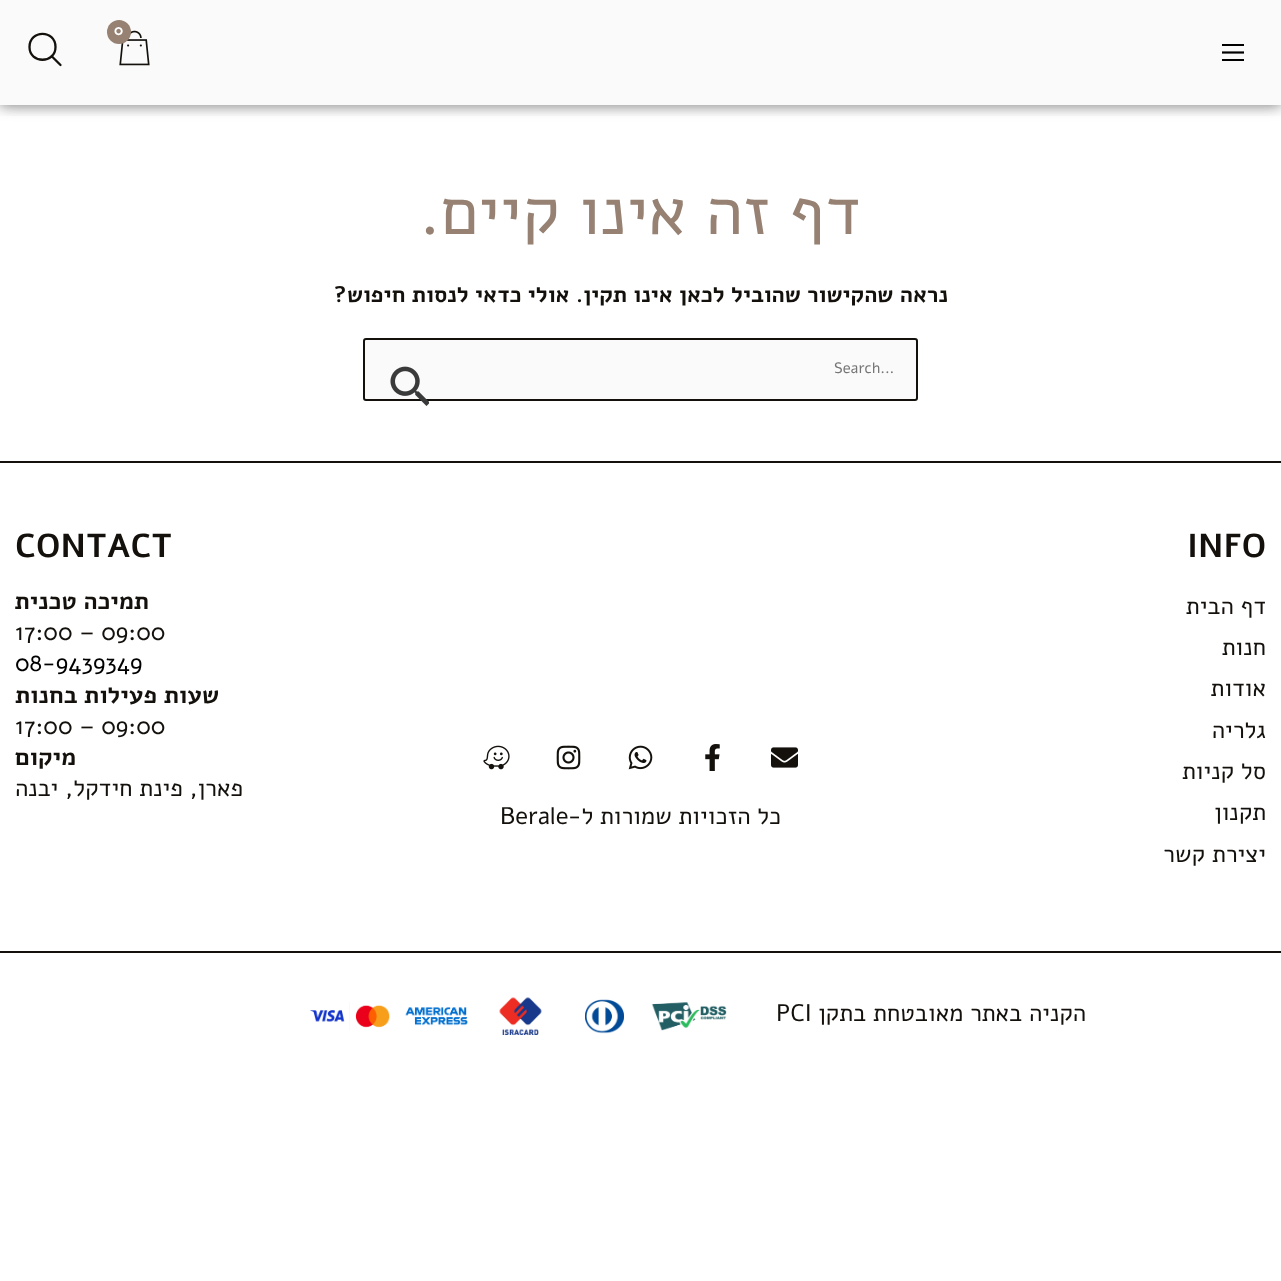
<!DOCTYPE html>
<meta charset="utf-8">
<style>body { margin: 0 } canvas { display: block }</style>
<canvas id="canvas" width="1281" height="1281"></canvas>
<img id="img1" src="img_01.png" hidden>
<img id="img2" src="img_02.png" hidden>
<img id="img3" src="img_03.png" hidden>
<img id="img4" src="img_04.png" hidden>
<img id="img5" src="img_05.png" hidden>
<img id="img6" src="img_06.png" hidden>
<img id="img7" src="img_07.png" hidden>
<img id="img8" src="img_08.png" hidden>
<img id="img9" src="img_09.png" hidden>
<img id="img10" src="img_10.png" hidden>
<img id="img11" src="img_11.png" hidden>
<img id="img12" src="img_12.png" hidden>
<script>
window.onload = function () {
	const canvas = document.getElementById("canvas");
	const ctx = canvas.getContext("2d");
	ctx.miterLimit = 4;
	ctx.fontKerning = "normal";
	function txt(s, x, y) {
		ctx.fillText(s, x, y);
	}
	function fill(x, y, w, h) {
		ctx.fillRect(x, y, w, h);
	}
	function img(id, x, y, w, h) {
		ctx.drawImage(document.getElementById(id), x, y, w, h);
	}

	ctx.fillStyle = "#FFFFFF";
	fill(0, 0, 1281, 1281);
	ctx.fillStyle = "rgba(0, 0, 0, 0.3)";
	ctx.filter = "blur(7.5px)";
	ctx.beginPath();
	ctx.rect(0, 0, 1281, 105);
	ctx.fill();
	ctx.filter = "none";
	ctx.fillStyle = "#FAFAFA";
	fill(0, 0, 1281, 105);
	ctx.save();
	ctx.beginPath();
	ctx.rect(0, 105, 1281, 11);
	ctx.clip();
	ctx.fillStyle = "rgba(0, 0, 0, 0.3)";
	ctx.filter = "blur(7.5px)";
	ctx.beginPath();
	ctx.rect(0, 0, 1281, 105);
	ctx.fill();
	ctx.filter = "none";
	ctx.restore();
	img("img1", 119, 30, 31, 36);
	ctx.fillStyle = "#968173";
	ctx.beginPath();
	ctx.arc(119, 32, 12, 0, Math.PI * 2);
	ctx.fill();
	ctx.beginPath();
	ctx.moveTo(51.5, 56);
	ctx.lineTo(60.5, 65);
	ctx.moveTo(55.5, 47);
	ctx.bezierCurveTo(55.5, 64, 29.5, 64, 29.5, 47);
	ctx.bezierCurveTo(29.5, 29.5, 55.5, 29.5, 55.5, 47);
	ctx.closePath();
	ctx.strokeStyle = "#14110D";
	ctx.lineWidth = 2.3;
	ctx.lineCap = "round";
	ctx.lineJoin = "round";
	ctx.stroke();
	ctx.fillStyle = "#000000";
	fill(1222, 44, 22, 2);
	ctx.beginPath();
	ctx.moveTo(1222, 52.5);
	ctx.lineTo(1244, 52.5);
	ctx.strokeStyle = "#000000";
	ctx.lineWidth = 2.2;
	ctx.lineCap = "butt";
	ctx.lineJoin = "miter";
	ctx.stroke();
	fill(1222, 59, 22, 2);
	ctx.fillStyle = "#FAFAFA";
	ctx.beginPath();
	ctx.roundRect(364, 339, 553, 61, 2);
	ctx.fill();
	ctx.strokeStyle = "#14110D";
	ctx.lineWidth = 2;
	ctx.stroke();
	img("img2", 390, 366, 39, 40);
	ctx.fillStyle = "#14110D";
	fill(0, 461, 1281, 2);
	fill(0, 951, 1281, 2);
	img("img3", 771, 747, 27, 21);
	img("img4", 705, 744, 15, 27);
	img("img5", 628, 745, 25, 25);
	img("img6", 556, 745, 25, 25);
	img("img7", 483, 745, 27, 25);
	img("img8", 651, 1002, 76, 29);
	img("img9", 585, 999, 39, 35);
	img("img10", 499, 997, 43, 38);
	img("img11", 405, 1007, 63, 19);
	img("img12", 310, 1002, 80, 29);
	ctx.font = "bold 15px Alef";
	ctx.fillStyle = "#FFFFFF";
	txt("0", 114, 35);
	ctx.direction = "rtl";
	ctx.font = "67.5px Alef";
	ctx.fillStyle = "#968173";
	txt("דף זה אינו קיים.", 861, 234);
	ctx.font = "bold 22.5px Alef";
	ctx.fillStyle = "#14110D";
	txt("נראה שהקישור שהוביל לכאן אינו תקין. אולי כדאי לנסות חיפוש?", 948, 302);
	ctx.direction = "ltr";
	ctx.font = "15px Alef";
	ctx.fillStyle = "#757575";
	txt("Search...", 834, 373);
	ctx.font = "bold 33px Alef";
	ctx.fillStyle = "#14110D";
	txt("INFO", 1187, 557);
	ctx.direction = "rtl";
	ctx.font = "24px Alef";
	txt("דף הבית", 1266, 614);
	txt("חנות", 1266, 655);
	txt("אודות", 1266, 696);
	txt("גלריה", 1266, 738);
	txt("סל קניות", 1266, 779);
	txt("תקנון", 1266, 820);
	txt("יצירת קשר", 1266, 862);
	txt("כל הזכויות שמורות ל-", 781, 824);
	ctx.direction = "ltr";
	txt("Berale", 500, 824);
	ctx.font = "bold 33px Alef";
	txt("CONTACT", 15, 557);
	ctx.direction = "rtl";
	ctx.font = "bold 24px Alef";
	txt("תמיכה טכנית", 149, 609);
	ctx.direction = "ltr";
	ctx.font = "24px Alef";
	txt("17:00 – 09:00", 15, 640);
	ctx.fillStyle = "#000000";
	txt("08-9439349", 15, 671);
	ctx.direction = "rtl";
	ctx.font = "bold 24px Alef";
	ctx.fillStyle = "#14110D";
	txt("שעות פעילות בחנות", 219, 703);
	ctx.direction = "ltr";
	ctx.font = "24px Alef";
	txt("17:00 – 09:00", 15, 734);
	ctx.direction = "rtl";
	ctx.font = "bold 24px Alef";
	txt("מיקום", 76, 765);
	ctx.font = "24px Alef";
	txt("פארן, פינת חידקל, יבנה", 243, 796);
	txt("הקניה באתר מאובטחת בתקן", 1086, 1021);
	ctx.direction = "ltr";
	txt("PCI", 776, 1021);
};
</script>
